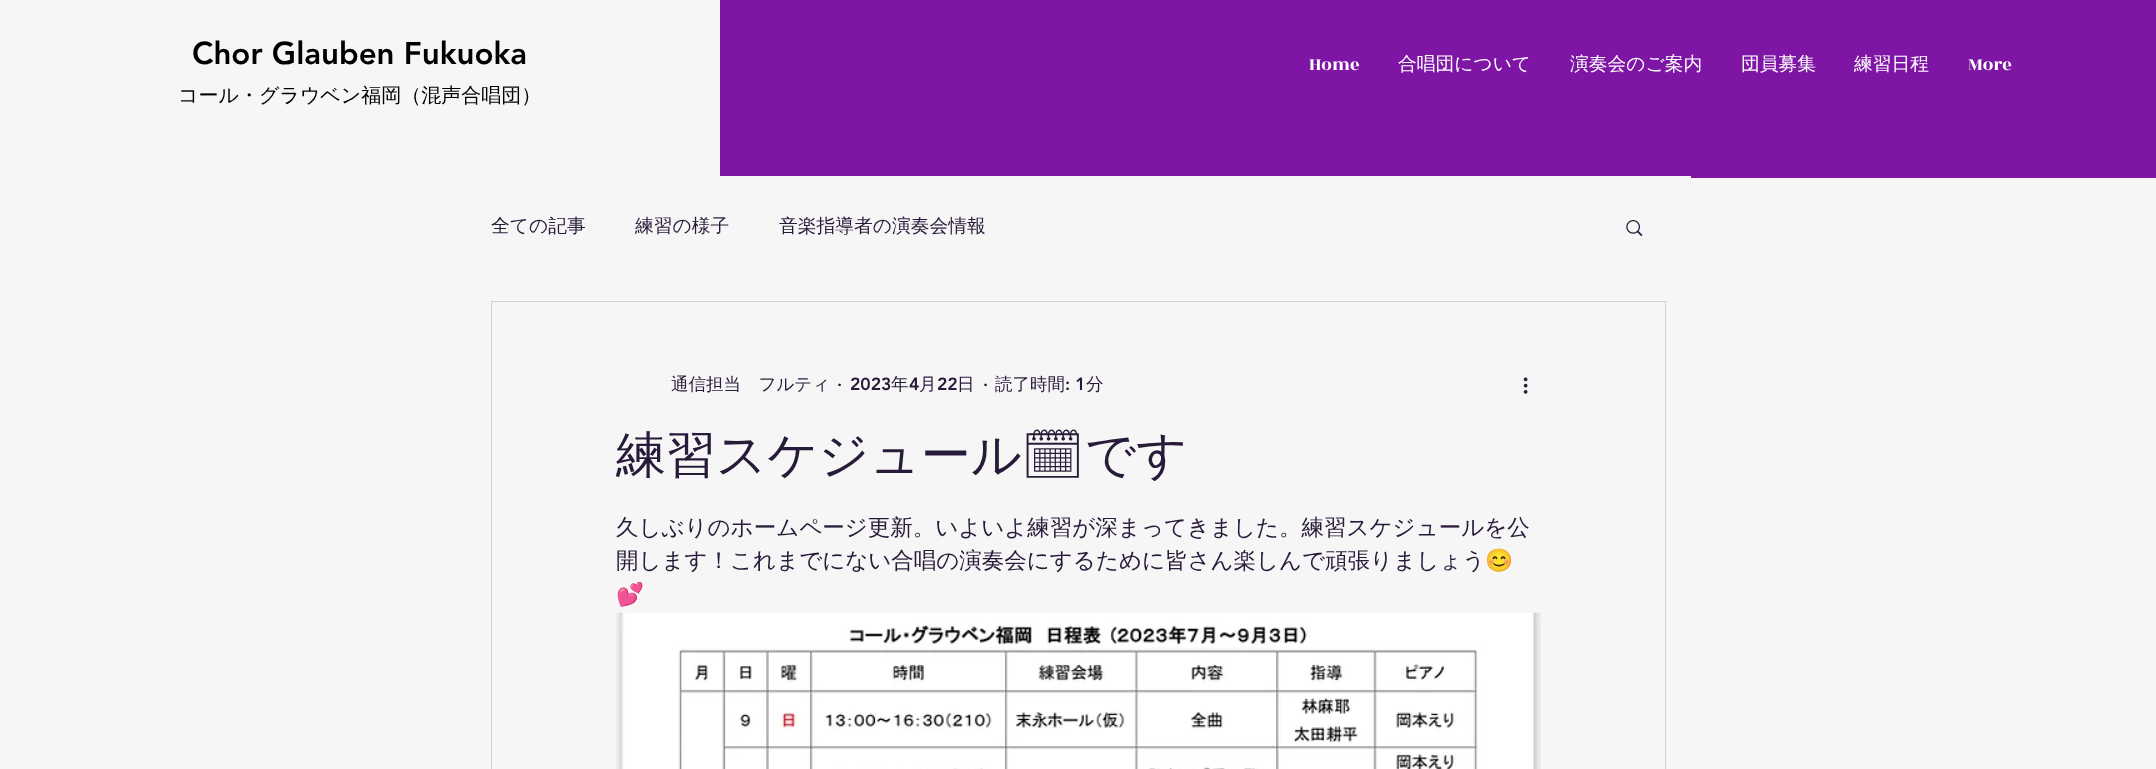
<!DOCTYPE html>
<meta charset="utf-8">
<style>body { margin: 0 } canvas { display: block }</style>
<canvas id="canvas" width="2156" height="769"></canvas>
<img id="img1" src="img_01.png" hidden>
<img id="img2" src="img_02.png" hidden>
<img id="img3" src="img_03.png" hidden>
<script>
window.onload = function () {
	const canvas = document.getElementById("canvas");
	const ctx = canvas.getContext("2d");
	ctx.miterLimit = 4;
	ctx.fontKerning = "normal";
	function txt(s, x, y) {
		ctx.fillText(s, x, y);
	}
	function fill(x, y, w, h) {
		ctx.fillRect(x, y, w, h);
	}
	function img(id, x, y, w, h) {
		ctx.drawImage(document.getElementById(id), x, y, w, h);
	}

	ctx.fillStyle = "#F6F6F6";
	fill(0, 0, 2156, 769);
	ctx.fillStyle = "#7E15A4";
	fill(720, 0, 1436, 178);
	ctx.fillStyle = "#F6F6F6";
	fill(720, 176, 971, 2);
	img("img1", 1626, 220, 17, 17);
	ctx.strokeStyle = "#D1D1D1";
	ctx.strokeRect(491.5, 301.5, 1174, 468);
	img("img2", 1523, 377, 5, 17);
	img("img3", 616, 612, 925, 157);
	ctx.font = "900 31.25px 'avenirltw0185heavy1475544'";
	ctx.fillStyle = "#000000";
	txt("Chor Glauben Fukuoka", 192, 64);
	ctx.font = "500 20px WenQuanYi Zen Hei";
	txt("コール・グラウベン福岡（混声合唱団）", 178, 102);
	ctx.font = "18.75px Rozha One";
	ctx.fillStyle = "#FFFFFF";
	txt("Home", 1309, 70);
	ctx.font = "500 18.75px WenQuanYi Zen Hei";
	txt("合唱団について", 1398, 70);
	txt("演奏会のご案内", 1570, 70);
	txt("団員募集", 1741, 70);
	txt("練習日程", 1854, 70);
	ctx.font = "18.75px Rozha One";
	txt("More", 1968, 70);
	ctx.font = "500 18.75px WenQuanYi Zen Hei";
	ctx.fillStyle = "#281A39";
	txt("全ての記事", 491, 232);
	txt("練習の様子", 635, 232);
	txt("音楽指導者の演奏会情報", 779, 232);
	ctx.font = "500 17.5px WenQuanYi Zen Hei";
	txt("通信担当　フルティ", 671, 390);
	ctx.font = "900 17.5px 'avenirltw0185heavy1475544'";
	txt("·", 837, 390);
	txt("2023", 850, 390);
	ctx.font = "500 17.5px WenQuanYi Zen Hei";
	txt("年", 891, 390);
	ctx.font = "900 17.5px 'avenirltw0185heavy1475544'";
	txt("4", 909, 390);
	ctx.font = "500 17.5px WenQuanYi Zen Hei";
	txt("月", 919, 390);
	ctx.font = "900 17.5px 'avenirltw0185heavy1475544'";
	txt("22", 937, 390);
	ctx.font = "500 17.5px WenQuanYi Zen Hei";
	txt("日", 957, 390);
	ctx.font = "900 17.5px 'avenirltw0185heavy1475544'";
	txt("·", 983, 390);
	ctx.font = "500 17.5px WenQuanYi Zen Hei";
	txt("読了時間", 995, 390);
	ctx.font = "900 17.5px 'avenirltw0185heavy1475544'";
	txt(": 1", 1065, 390);
	ctx.font = "500 17.5px WenQuanYi Zen Hei";
	txt("分", 1086, 390);
	ctx.font = "500 50px WenQuanYi Zen Hei";
	txt("練習スケジュール", 616, 472);
	ctx.font = "50px Noto Emoji";
	txt("🗓", 1021, 472);
	ctx.font = "500 50px WenQuanYi Zen Hei";
	txt("です", 1085, 472);
	ctx.font = "500 22.5px WenQuanYi Zen Hei";
	txt("久しぶりのホームページ更新。いよいよ練習が深まってきました。練習スケジュールを公", 616, 535);
	txt("開します！これまでにない合唱の演奏会にするために皆さん楽しんで頑張りましょう", 616, 568);
	ctx.font = "22.5px Noto Color Emoji";
	txt("😊", 1485, 568);
	txt("💕", 616, 602);
};
</script>
